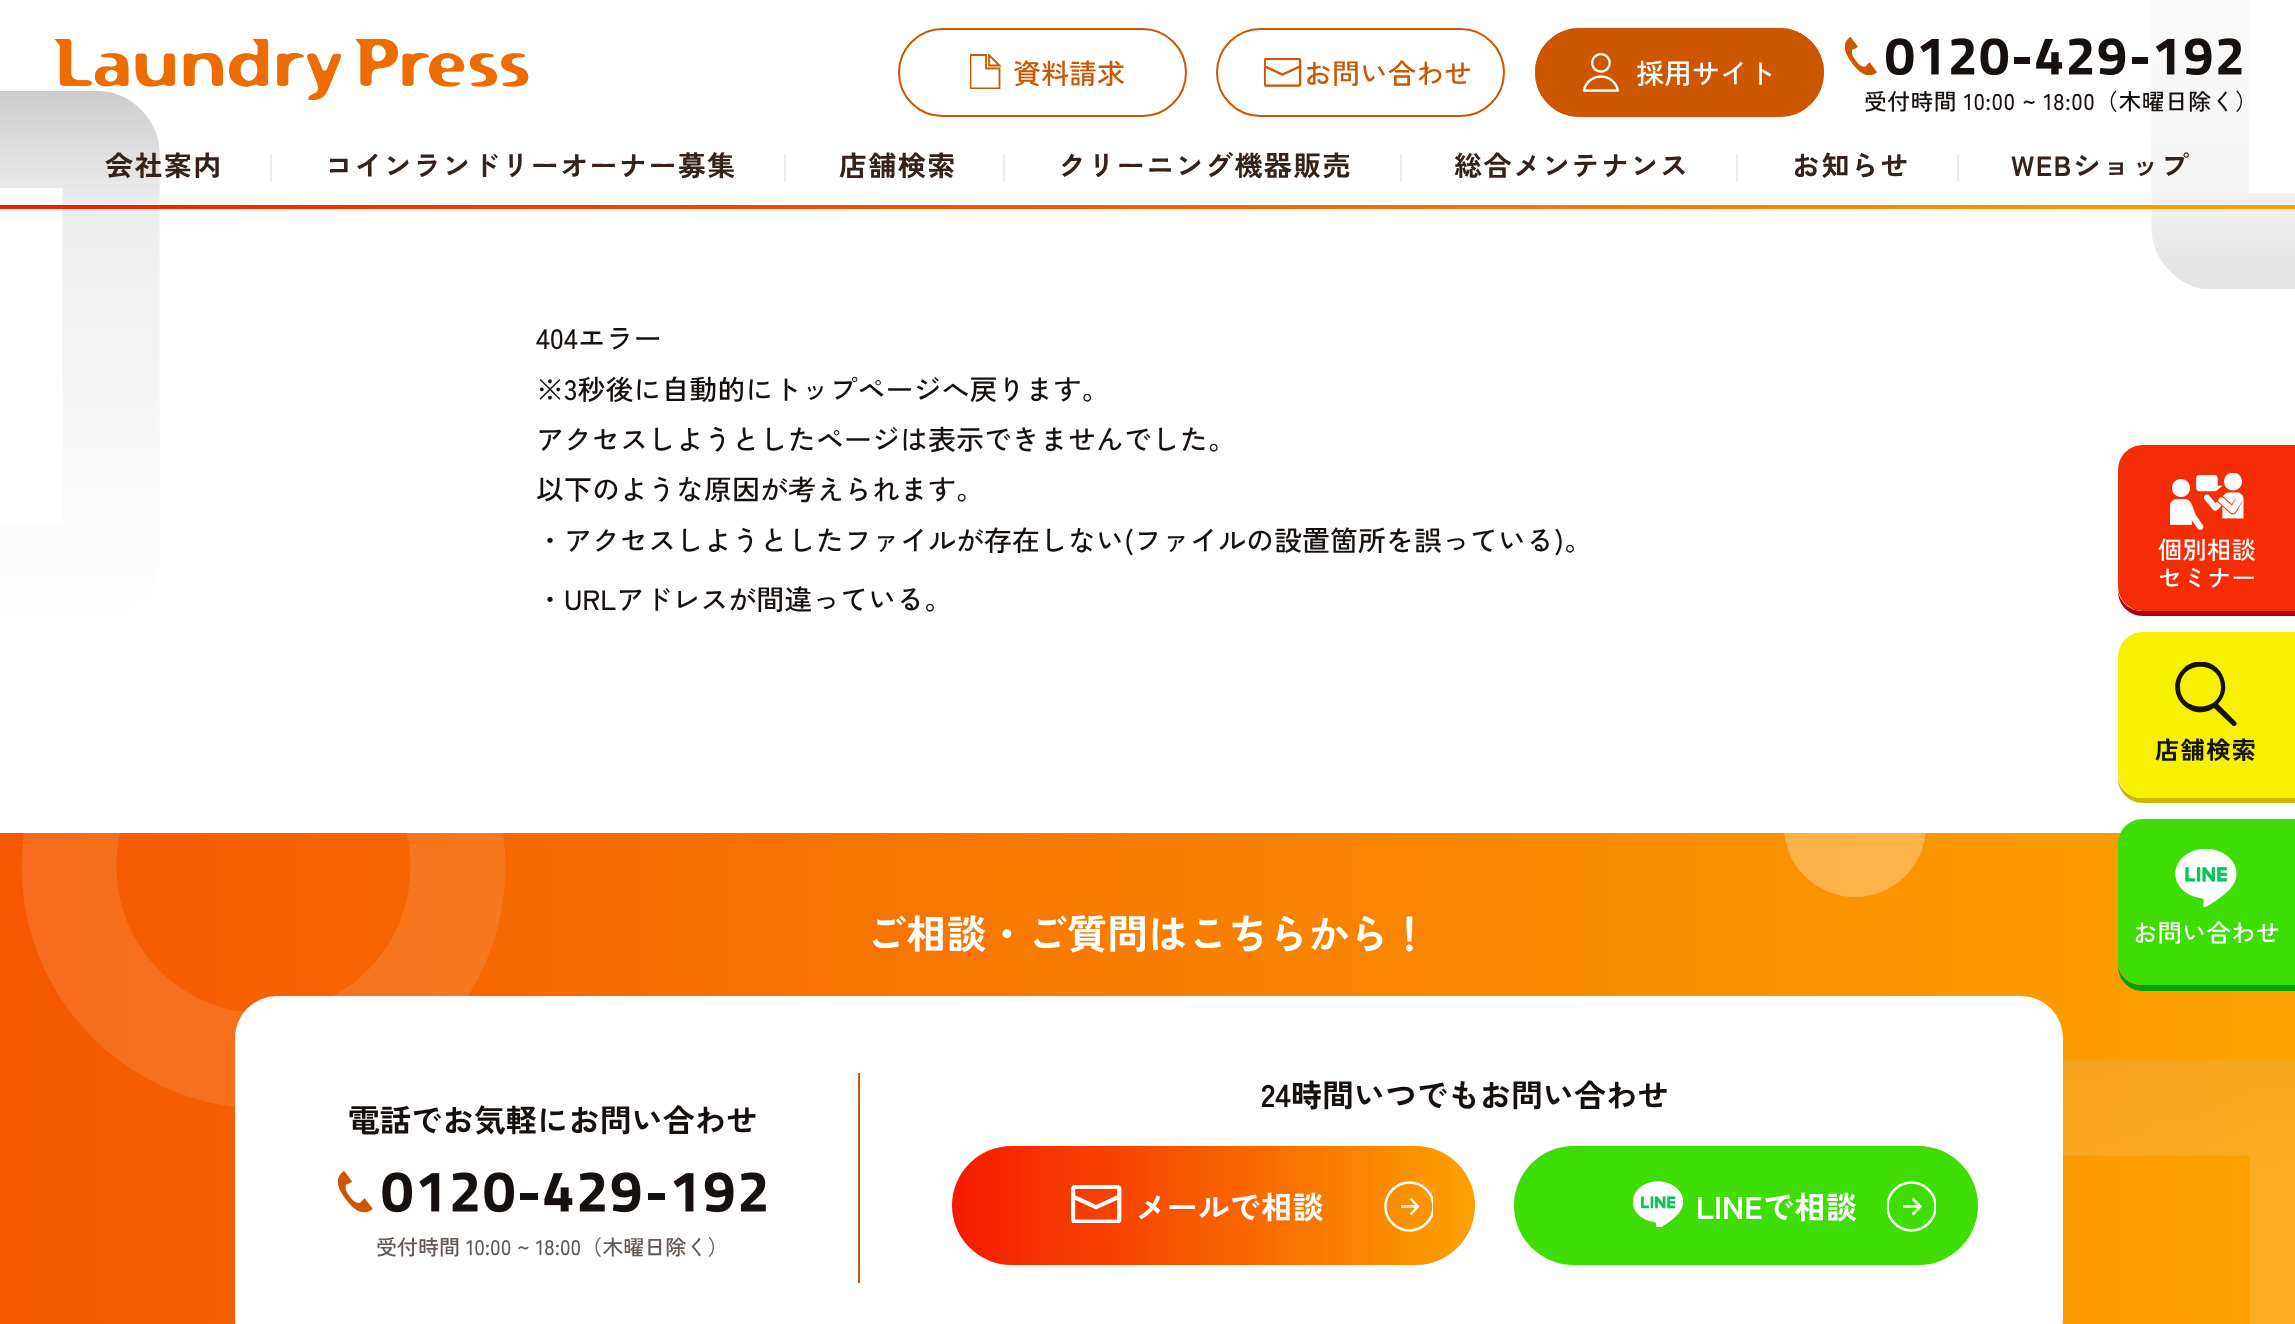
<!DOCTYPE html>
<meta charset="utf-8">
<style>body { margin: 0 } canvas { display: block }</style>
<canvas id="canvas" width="2295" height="1324"></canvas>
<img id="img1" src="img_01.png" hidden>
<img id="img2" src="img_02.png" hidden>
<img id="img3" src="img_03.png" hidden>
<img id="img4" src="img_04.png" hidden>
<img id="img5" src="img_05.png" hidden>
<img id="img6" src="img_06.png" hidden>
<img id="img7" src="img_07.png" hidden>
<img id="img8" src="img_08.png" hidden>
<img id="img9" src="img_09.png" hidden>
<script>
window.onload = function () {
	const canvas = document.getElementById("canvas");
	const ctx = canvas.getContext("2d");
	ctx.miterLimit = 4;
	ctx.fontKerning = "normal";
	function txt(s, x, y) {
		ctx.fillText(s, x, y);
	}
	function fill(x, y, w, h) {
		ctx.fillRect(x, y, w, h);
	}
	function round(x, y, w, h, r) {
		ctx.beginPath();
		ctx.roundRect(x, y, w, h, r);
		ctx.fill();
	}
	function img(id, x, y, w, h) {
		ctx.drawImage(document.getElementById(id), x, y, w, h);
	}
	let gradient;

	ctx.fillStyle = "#FFFFFF";
	fill(0, 0, 2295, 1324);
	ctx.save();
	ctx.beginPath();
	ctx.rect(0, 91, 161, 530);
	ctx.clip();
	ctx.beginPath();
	ctx.moveTo(111, 154.5);
	ctx.lineTo(111, 557);
	ctx.bezierCurveTo(111, 565.5, 104.5, 572, 96, 572);
	ctx.lineTo(-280.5, 572);
	ctx.bezierCurveTo(-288.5, 572, -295.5, 565.5, -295.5, 557);
	ctx.lineTo(-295.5, 154.5);
	ctx.bezierCurveTo(-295.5, 146.5, -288.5, 139.5, -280.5, 139.5);
	ctx.lineTo(96, 139.5);
	ctx.bezierCurveTo(104.5, 139.5, 111, 146.5, 111, 154.5);
	ctx.closePath();
	gradient = ctx.createLinearGradient(-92, 91, -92, 621);
	gradient.addColorStop(0, "#CCCCCC");
	gradient.addColorStop(0.21, "#EDEDED");
	gradient.addColorStop(1, "#FFFFFF");
	ctx.strokeStyle = gradient;
	ctx.lineWidth = 97.3;
	ctx.stroke();
	ctx.restore();
	ctx.save();
	ctx.beginPath();
	ctx.rect(2151, 0, 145, 289);
	ctx.clip();
	ctx.beginPath();
	ctx.moveTo(2200, 226.5);
	ctx.lineTo(2200, -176);
	ctx.bezierCurveTo(2200, -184.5, 2207, -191, 2215, -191);
	ctx.lineTo(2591.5, -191);
	ctx.bezierCurveTo(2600, -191, 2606.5, -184.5, 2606.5, -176);
	ctx.lineTo(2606.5, 226.5);
	ctx.bezierCurveTo(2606.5, 234.5, 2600, 241.5, 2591.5, 241.5);
	ctx.lineTo(2215, 241.5);
	ctx.bezierCurveTo(2207, 241.5, 2200, 234.5, 2200, 226.5);
	ctx.closePath();
	gradient = ctx.createLinearGradient(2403, 290, 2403, -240);
	gradient.addColorStop(0, "#E3E3E3");
	gradient.addColorStop(0.21, "#F5F5F5");
	gradient.addColorStop(1, "#FFFFFF");
	ctx.strokeStyle = gradient;
	ctx.lineWidth = 97.3;
	ctx.stroke();
	ctx.restore();
	img("img1", 54, 39, 475, 61);
	ctx.save();
	ctx.beginPath();
	ctx.rect(970, 54, 31, 35);
	ctx.clip();
	ctx.beginPath();
	ctx.moveTo(989, 55);
	ctx.lineTo(989, 65.5);
	ctx.lineTo(999.5, 65.5);
	ctx.closePath();
	ctx.moveTo(986, 68.5);
	ctx.lineTo(986, 55);
	ctx.lineTo(970.5, 55);
	ctx.lineTo(970.5, 88.5);
	ctx.lineTo(999.5, 88.5);
	ctx.lineTo(999.5, 68.5);
	ctx.closePath();
	ctx.strokeStyle = "#CC5700";
	ctx.lineWidth = 1.8;
	ctx.stroke();
	ctx.restore();
	ctx.beginPath();
	ctx.roundRect(899, 29, 287, 87, 43.5);
	ctx.strokeStyle = "#CC5700";
	ctx.lineWidth = 2;
	ctx.stroke();
	img("img2", 1264, 58, 38, 29);
	ctx.beginPath();
	ctx.roundRect(1217, 29, 287, 87, 43.5);
	ctx.stroke();
	ctx.fillStyle = "#CC5700";
	round(1535, 28, 289, 89, 44.5);
	img("img3", 1582, 53, 38, 39);
	ctx.beginPath();
	ctx.roundRect(1536, 29, 287, 87, 43.5);
	ctx.stroke();
	img("img4", 1845, 37, 397, 38);
	ctx.fillStyle = "#EFE9E8";
	fill(270, 154, 2, 28);
	fill(784, 154, 2, 28);
	fill(1003, 154, 2, 28);
	fill(1400, 154, 2, 28);
	fill(1736, 154, 2, 28);
	fill(1957, 154, 2, 28);
	gradient = ctx.createLinearGradient(0, 207, 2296, 206);
	gradient.addColorStop(0, "#F41A00");
	gradient.addColorStop(1, "#FCA200");
	ctx.fillStyle = gradient;
	fill(0, 205, 2295, 4);
	ctx.fillStyle = "#B20000";
	ctx.beginPath();
	ctx.moveTo(2118, 591);
	ctx.bezierCurveTo(2118, 605, 2129, 616, 2143, 616);
	ctx.lineTo(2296, 616);
	ctx.lineTo(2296, 611);
	ctx.lineTo(2142, 611);
	ctx.bezierCurveTo(2130, 611, 2120, 602, 2118, 591);
	ctx.closePath();
	ctx.fill();
	ctx.fillStyle = "#F42D06";
	ctx.beginPath();
	ctx.moveTo(2143, 445);
	ctx.lineTo(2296, 445);
	ctx.lineTo(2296, 611);
	ctx.lineTo(2143, 611);
	ctx.bezierCurveTo(2129, 611, 2118, 600, 2118, 586);
	ctx.lineTo(2118, 470);
	ctx.bezierCurveTo(2118, 456, 2129, 445, 2143, 445);
	ctx.closePath();
	ctx.fill();
	img("img5", 2170, 473, 74, 57);
	ctx.fillStyle = "#CCB800";
	ctx.beginPath();
	ctx.moveTo(2118, 778);
	ctx.bezierCurveTo(2118, 792, 2129, 803, 2143, 803);
	ctx.lineTo(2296, 803);
	ctx.lineTo(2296, 798);
	ctx.lineTo(2142, 798);
	ctx.bezierCurveTo(2130, 798, 2120, 790, 2118, 778);
	ctx.closePath();
	ctx.fill();
	ctx.fillStyle = "#F7F000";
	ctx.beginPath();
	ctx.moveTo(2143, 632);
	ctx.lineTo(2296, 632);
	ctx.lineTo(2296, 798);
	ctx.lineTo(2143, 798);
	ctx.bezierCurveTo(2129, 798, 2118, 787, 2118, 773);
	ctx.lineTo(2118, 657);
	ctx.bezierCurveTo(2118, 643, 2129, 632, 2143, 632);
	ctx.closePath();
	ctx.fill();
	ctx.save();
	ctx.beginPath();
	ctx.rect(2175, 662, 62, 64);
	ctx.clip();
	ctx.fillStyle = "#16110E";
	ctx.beginPath();
	ctx.moveTo(2236, 722);
	ctx.lineTo(2218, 704);
	ctx.bezierCurveTo(2235, 687, 2220, 657, 2195, 662);
	ctx.bezierCurveTo(2191, 663, 2186, 665, 2183, 669);
	ctx.bezierCurveTo(2161, 691, 2190, 724, 2214, 708);
	ctx.lineTo(2233, 726);
	ctx.bezierCurveTo(2235, 727, 2238, 724, 2236, 722);
	ctx.closePath();
	ctx.moveTo(2180, 687);
	ctx.bezierCurveTo(2180, 660, 2221, 660, 2221, 687);
	ctx.bezierCurveTo(2221, 713, 2180, 713, 2180, 687);
	ctx.closePath();
	ctx.fill();
	ctx.restore();
	gradient = ctx.createLinearGradient(0, 1149, 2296, 1149);
	gradient.addColorStop(0, "#F55800");
	gradient.addColorStop(1, "#FCA200");
	ctx.fillStyle = gradient;
	fill(0, 833, 2295, 491);
	ctx.fillStyle = "#00A300";
	ctx.beginPath();
	ctx.moveTo(2118, 966);
	ctx.bezierCurveTo(2118, 980, 2129, 991, 2143, 991);
	ctx.lineTo(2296, 991);
	ctx.lineTo(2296, 985);
	ctx.lineTo(2142, 985);
	ctx.bezierCurveTo(2130, 985, 2120, 977, 2118, 966);
	ctx.closePath();
	ctx.fill();
	ctx.fillStyle = "#3FDD05";
	ctx.beginPath();
	ctx.moveTo(2143, 819);
	ctx.lineTo(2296, 819);
	ctx.lineTo(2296, 985);
	ctx.lineTo(2143, 985);
	ctx.bezierCurveTo(2129, 985, 2118, 974, 2118, 960);
	ctx.lineTo(2118, 844);
	ctx.bezierCurveTo(2118, 830, 2129, 819, 2143, 819);
	ctx.closePath();
	ctx.fill();
	img("img6", 2175, 849, 62, 58);
	ctx.beginPath();
	ctx.moveTo(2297.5, 1120.5);
	ctx.lineTo(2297.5, 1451);
	ctx.bezierCurveTo(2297.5, 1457.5, 2292, 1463, 2285.5, 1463);
	ctx.lineTo(1976.5, 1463);
	ctx.bezierCurveTo(1969.5, 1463, 1964, 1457.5, 1964, 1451);
	ctx.lineTo(1964, 1120.5);
	ctx.bezierCurveTo(1964, 1113.5, 1969.5, 1108, 1976.5, 1108);
	ctx.lineTo(2285.5, 1108);
	ctx.bezierCurveTo(2292, 1108, 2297.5, 1113.5, 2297.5, 1120.5);
	ctx.closePath();
	gradient = ctx.createLinearGradient(2131, 1061, 2131, 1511);
	gradient.addColorStop(0, "rgba(204, 204, 204, 0.14)");
	gradient.addColorStop(0.21, "rgba(237, 237, 237, 0.14)");
	gradient.addColorStop(1, "rgba(255, 255, 255, 0.14)");
	ctx.strokeStyle = gradient;
	ctx.lineWidth = 94.8;
	ctx.stroke();
	ctx.save();
	ctx.beginPath();
	ctx.rect(0, 833, 569, 307);
	ctx.clip();
	ctx.beginPath();
	ctx.arc(263.5, 866.5, 194.5, 0, Math.PI * 2);
	ctx.strokeStyle = "rgba(255, 255, 255, 0.11)";
	ctx.stroke();
	ctx.restore();
	ctx.save();
	ctx.beginPath();
	ctx.rect(0, 833, 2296, 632);
	ctx.clip();
	ctx.fillStyle = "rgba(255, 255, 255, 0.29)";
	ctx.beginPath();
	ctx.arc(1855, 826, 71, 0, Math.PI * 2);
	ctx.fill();
	ctx.restore();
	ctx.fillStyle = "#FFFFFF";
	round(235, 996, 1828, 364, 42);
	ctx.fillStyle = "#CC5700";
	fill(858, 1073, 2, 210);
	img("img7", 338, 1171, 428, 42);
	gradient = ctx.createLinearGradient(952, 1206, 1475, 1206);
	gradient.addColorStop(0, "#F41A00");
	gradient.addColorStop(1, "#FCA200");
	ctx.fillStyle = gradient;
	round(952, 1146, 523, 119, 59.5);
	ctx.save();
	ctx.beginPath();
	ctx.rect(1384, 1181, 49, 51);
	ctx.clip();
	ctx.beginPath();
	ctx.arc(1409.5, 1206.5, 24, 0, Math.PI * 2);
	ctx.strokeStyle = "#FFFFFF";
	ctx.lineWidth = 2.5;
	ctx.stroke();
	ctx.restore();
	ctx.beginPath();
	ctx.moveTo(1410.5, 1198.5);
	ctx.lineTo(1418, 1206.5);
	ctx.lineTo(1410.5, 1214.5);
	ctx.strokeStyle = "#FFFFFF";
	ctx.lineWidth = 2.5;
	ctx.stroke();
	ctx.fillStyle = "rgba(255, 255, 255, 0.83)";
	fill(1401, 1205, 17, 3);
	img("img8", 1071, 1185, 51, 38);
	ctx.fillStyle = "#3FDD05";
	round(1514, 1146, 464, 119, 59.5);
	ctx.save();
	ctx.beginPath();
	ctx.rect(1887, 1181, 49, 51);
	ctx.clip();
	ctx.beginPath();
	ctx.arc(1911.5, 1206.5, 24, 0, Math.PI * 2);
	ctx.stroke();
	ctx.restore();
	ctx.beginPath();
	ctx.moveTo(1912.5, 1198.5);
	ctx.lineTo(1920.5, 1206.5);
	ctx.lineTo(1912.5, 1214.5);
	ctx.stroke();
	ctx.fillStyle = "rgba(255, 255, 255, 0.83)";
	fill(1903, 1205, 18, 3);
	img("img9", 1633, 1181, 51, 46);
	ctx.font = "500 28px Zen Kaku Gothic New";
	ctx.fillStyle = "#CC5700";
	txt("資料請求", 1013, 84);
	txt("お問い合わせ", 1304, 84);
	ctx.fillStyle = "#FFFFFF";
	txt("採用サイト", 1636, 84);
	ctx.letterSpacing = "0.5px";
	ctx.font = "500 22.75px Zen Kaku Gothic New";
	ctx.fillStyle = "#16110E";
	txt("受付時間 10:00 ~ 18:00（木曜日除く）", 1864, 110);
	ctx.letterSpacing = "1.4px";
	ctx.font = "bold 28px Zen Kaku Gothic New";
	ctx.fillStyle = "#35221A";
	txt("会社案内", 105, 176);
	txt("コインランドリーオーナー募集", 325, 176);
	txt("店舗検索", 839, 176);
	txt("クリーニング機器販売", 1058, 176);
	txt("総合メンテナンス", 1454, 176);
	txt("お知らせ", 1792, 176);
	txt("WEBショップ", 2011, 176);
	ctx.letterSpacing = "0px";
	ctx.font = "500 28px Zen Kaku Gothic New";
	ctx.fillStyle = "#16110E";
	txt("404エラー", 536, 349);
	txt("※3秒後に自動的にトップページへ戻ります。", 536, 400);
	txt("アクセスしようとしたページは表示できませんでした。", 536, 450);
	txt("以下のような原因が考えられます。", 536, 500);
	txt("・アクセスしようとしたファイルが存在しない(ファイルの設置箇所を誤っている)。", 536, 551);
	txt("・URLアドレスが間違っている。", 536, 610);
	ctx.font = "500 24.5px Zen Kaku Gothic New";
	ctx.fillStyle = "#FFFFFF";
	txt("個別相談", 2158, 559);
	txt("セミナー", 2158, 587);
	ctx.letterSpacing = "1px";
	ctx.font = "bold 24.5px Zen Kaku Gothic New";
	ctx.fillStyle = "#16110E";
	txt("店舗検索", 2155, 759);
	ctx.letterSpacing = "0px";
	ctx.font = "500 24.5px Zen Kaku Gothic New";
	ctx.fillStyle = "#FFFFFF";
	txt("お問い合わせ", 2133, 942);
	ctx.font = "bold 40.25px Zen Kaku Gothic New";
	txt("ご相談・ご質問はこちらから！", 866, 949);
	ctx.font = "bold 31.5px Zen Kaku Gothic New";
	ctx.fillStyle = "#16110E";
	txt("電話でお気軽にお問い合わせ", 348, 1132);
	ctx.font = "500 21px Zen Kaku Gothic New";
	ctx.fillStyle = "#635A56";
	txt("受付時間 10:00 ~ 18:00（木曜日除く）", 376, 1255);
	ctx.font = "bold 31.5px Zen Kaku Gothic New";
	ctx.fillStyle = "#16110E";
	txt("24時間いつでもお問い合わせ", 1261, 1107);
	ctx.fillStyle = "#FFFFFF";
	txt("メールで相談", 1135, 1219);
	txt("LINEで相談", 1696, 1219);
};
</script>
